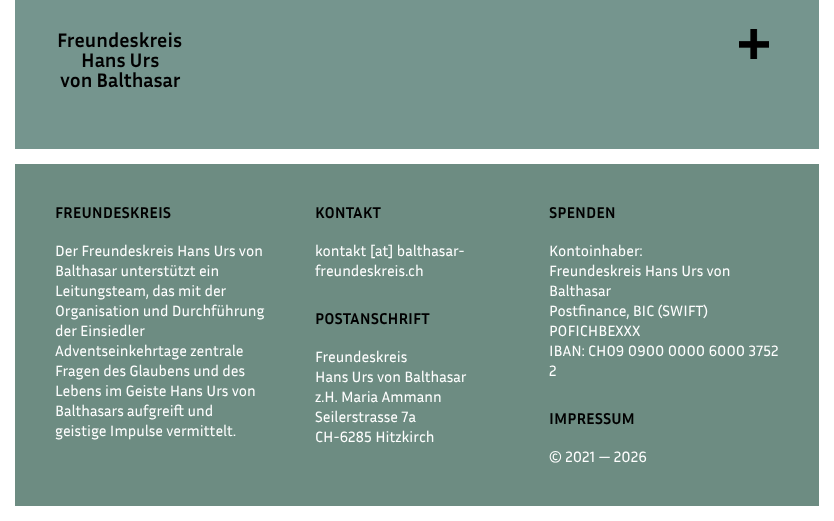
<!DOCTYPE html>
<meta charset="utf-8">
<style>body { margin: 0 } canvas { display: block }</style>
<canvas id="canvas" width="834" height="521"></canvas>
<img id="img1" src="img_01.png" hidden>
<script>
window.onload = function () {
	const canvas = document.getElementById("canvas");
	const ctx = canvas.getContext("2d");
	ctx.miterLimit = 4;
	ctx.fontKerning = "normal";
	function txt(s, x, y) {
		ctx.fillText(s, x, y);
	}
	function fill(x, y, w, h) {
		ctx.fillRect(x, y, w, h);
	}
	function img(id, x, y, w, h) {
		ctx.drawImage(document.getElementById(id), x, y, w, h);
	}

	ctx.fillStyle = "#6D8C82";
	fill(0, 0, 834, 521);
	ctx.fillStyle = "#75958E";
	ctx.beginPath();
	ctx.rect(7.5, -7.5, 819, 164);
	ctx.fill();
	ctx.strokeStyle = "#FFFFFF";
	ctx.lineWidth = 15;
	ctx.stroke();
	img("img1", 739, 29, 30, 30);
	ctx.fillStyle = "#FFFFFF";
	fill(819, 164, 15, 342);
	fill(15, 506, 819, 15);
	fill(0, 164, 15, 357);
	ctx.font = "bold 20px Inria Sans";
	ctx.fillStyle = "#000000";
	txt("Freundeskreis", 57, 47);
	txt("Hans Urs", 81, 67);
	txt("von Balthasar", 60, 87);
	ctx.font = "bold 16px Inria Sans";
	txt("FREUNDESKREIS", 55, 218);
	ctx.font = "15.25px Inria Sans";
	ctx.fillStyle = "#FFFFFF";
	txt("Der Freundeskreis Hans Urs von", 55, 256);
	txt("Balthasar unterstützt ein", 55, 276);
	txt("Leitungsteam, das mit der", 55, 296);
	txt("Organisation und Durchführung", 55, 316);
	txt("der Einsiedler", 55, 336);
	txt("Adventseinkehrtage zentrale", 55, 356);
	txt("Fragen des Glaubens und des", 55, 376);
	txt("Lebens im Geiste Hans Urs von", 55, 396);
	txt("Balthasars aufgreift und", 55, 416);
	txt("geistige Impulse vermittelt.", 55, 436);
	ctx.font = "bold 16px Inria Sans";
	ctx.fillStyle = "#000000";
	txt("KONTAKT", 315, 218);
	ctx.font = "15.25px Inria Sans";
	ctx.fillStyle = "#FFFFFF";
	txt("kontakt [at] balthasar-", 315, 256);
	txt("freundeskreis.ch", 315, 276);
	ctx.font = "bold 16px Inria Sans";
	ctx.fillStyle = "#000000";
	txt("POSTANSCHRIFT", 315, 324);
	ctx.font = "15.25px Inria Sans";
	ctx.fillStyle = "#FFFFFF";
	txt("Freundeskreis", 315, 362);
	txt("Hans Urs von Balthasar", 315, 382);
	txt("z.H. Maria Ammann", 315, 402);
	txt("Seilerstrasse 7a", 315, 422);
	txt("CH-6285 Hitzkirch", 315, 442);
	ctx.font = "bold 16px Inria Sans";
	ctx.fillStyle = "#000000";
	txt("SPENDEN", 549, 218);
	ctx.font = "15.25px Inria Sans";
	ctx.fillStyle = "#FFFFFF";
	txt("Kontoinhaber:", 549, 256);
	txt("Freundeskreis Hans Urs von", 549, 276);
	txt("Balthasar", 549, 296);
	txt("Postfinance, BIC (SWIFT)", 549, 316);
	txt("POFICHBEXXX", 549, 336);
	txt("IBAN: CH09 0900 0000 6000 3752", 549, 356);
	txt("2", 549, 376);
	ctx.font = "bold 16px Inria Sans";
	ctx.fillStyle = "#000000";
	txt("IMPRESSUM", 549, 424);
	ctx.font = "15.25px Inria Sans";
	ctx.fillStyle = "#FFFFFF";
	txt("© 2021 — 2026", 549, 462);
};
</script>
